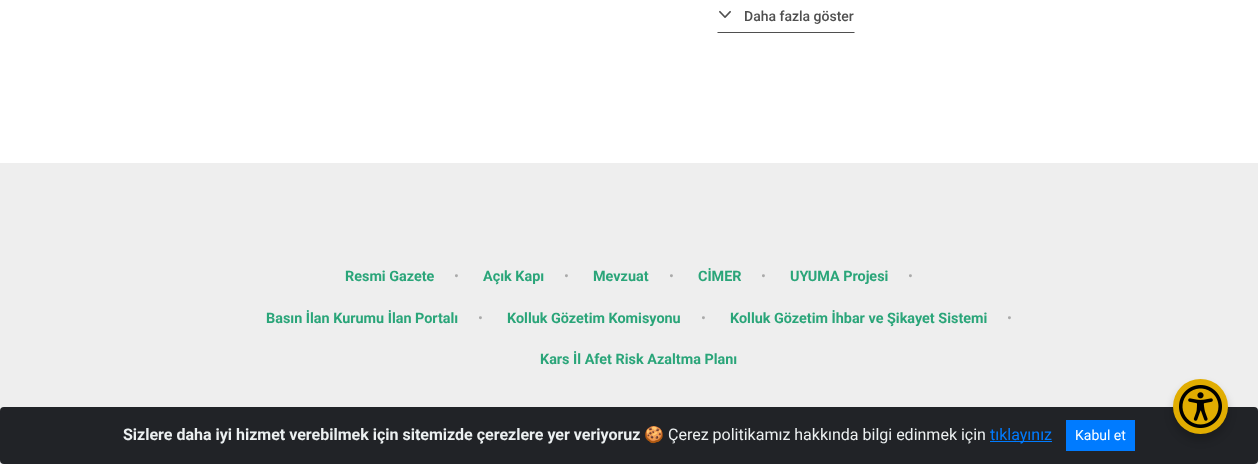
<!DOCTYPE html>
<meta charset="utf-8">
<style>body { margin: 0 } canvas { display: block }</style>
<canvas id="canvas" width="1258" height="464"></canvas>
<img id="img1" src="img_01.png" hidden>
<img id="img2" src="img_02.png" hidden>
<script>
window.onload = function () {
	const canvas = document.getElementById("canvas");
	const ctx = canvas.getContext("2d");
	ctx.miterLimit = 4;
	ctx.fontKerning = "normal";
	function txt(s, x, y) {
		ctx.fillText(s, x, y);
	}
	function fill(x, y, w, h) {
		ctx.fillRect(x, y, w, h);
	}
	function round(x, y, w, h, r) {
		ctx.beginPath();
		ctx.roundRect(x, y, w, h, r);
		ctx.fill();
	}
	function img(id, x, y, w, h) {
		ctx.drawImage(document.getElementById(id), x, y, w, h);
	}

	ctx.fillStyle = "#FFFFFF";
	fill(0, 0, 1258, 464);
	ctx.fillStyle = "#4F4F4F";
	ctx.beginPath();
	ctx.moveTo(855, 33);
	ctx.lineTo(717, 33);
	ctx.lineTo(718, 32);
	ctx.lineTo(854, 32);
	ctx.closePath();
	ctx.fill();
	img("img1", 719, 10, 12, 8);
	ctx.fillStyle = "#EEEEEE";
	fill(0, 163, 1258, 301);
	ctx.fillStyle = "#212327";
	round(0, 407, 1258, 57, 4);
	ctx.fillStyle = "#007BFF";
	fill(990, 441, 62, 1);
	fill(1066, 420, 69, 31);
	ctx.fillStyle = "rgba(0, 0, 0, 0.2)";
	ctx.filter = "blur(4px)";
	ctx.beginPath();
	ctx.roundRect(1173, 385, 55, 55, 27.5);
	ctx.fill();
	ctx.filter = "none";
	ctx.fillStyle = "#E1AD01";
	ctx.beginPath();
	ctx.arc(1200.5, 406.5, 27.5, 0, Math.PI * 2);
	ctx.fill();
	img("img2", 1179, 385, 43, 43);
	ctx.font = "500 14px Roboto";
	ctx.fillStyle = "#4F4F4F";
	txt("Daha fazla göster", 744, 21);
	ctx.font = "bold 14.4px Roboto";
	ctx.fillStyle = "#2AA579";
	txt("Resmi Gazete", 345, 281);
	ctx.font = "14.4px Roboto";
	ctx.fillStyle = "#AAAAAA";
	txt("•", 454, 281);
	ctx.font = "bold 14.4px Roboto";
	ctx.fillStyle = "#2AA579";
	txt("Açık Kapı", 483, 281);
	ctx.font = "14.4px Roboto";
	ctx.fillStyle = "#AAAAAA";
	txt("•", 564, 281);
	ctx.font = "bold 14.4px Roboto";
	ctx.fillStyle = "#2AA579";
	txt("Mevzuat", 593, 281);
	ctx.font = "14.4px Roboto";
	ctx.fillStyle = "#AAAAAA";
	txt("•", 669, 281);
	ctx.font = "bold 14.4px Roboto";
	ctx.fillStyle = "#2AA579";
	txt("CİMER", 698, 281);
	ctx.font = "14.4px Roboto";
	ctx.fillStyle = "#AAAAAA";
	txt("•", 761, 281);
	ctx.font = "bold 14.4px Roboto";
	ctx.fillStyle = "#2AA579";
	txt("UYUMA Projesi", 790, 281);
	ctx.font = "14.4px Roboto";
	ctx.fillStyle = "#AAAAAA";
	txt("•", 908, 281);
	ctx.font = "bold 14.4px Roboto";
	ctx.fillStyle = "#2AA579";
	txt("Basın İlan Kurumu İlan Portalı", 266, 323);
	ctx.font = "14.4px Roboto";
	ctx.fillStyle = "#AAAAAA";
	txt("•", 478, 323);
	ctx.font = "bold 14.4px Roboto";
	ctx.fillStyle = "#2AA579";
	txt("Kolluk Gözetim Komisyonu", 507, 323);
	ctx.font = "14.4px Roboto";
	ctx.fillStyle = "#AAAAAA";
	txt("•", 701, 323);
	ctx.font = "bold 14.4px Roboto";
	ctx.fillStyle = "#2AA579";
	txt("Kolluk Gözetim İhbar ve Şikayet Sistemi", 730, 323);
	ctx.font = "14.4px Roboto";
	ctx.fillStyle = "#AAAAAA";
	txt("•", 1007, 323);
	ctx.font = "bold 14.4px Roboto";
	ctx.fillStyle = "#2AA579";
	txt("Kars İl Afet Risk Azaltma Planı", 540, 364);
	ctx.font = "bold 16px Roboto";
	ctx.fillStyle = "#ECF0F1";
	txt("Sizlere daha iyi hizmet verebilmek için sitemizde çerezlere yer veriyoruz", 123, 440);
	ctx.font = "16px Noto Color Emoji";
	txt("🍪", 644, 440);
	ctx.font = "16px Roboto";
	txt("Çerez politikamız hakkında bilgi edinmek için", 668, 440);
	ctx.fillStyle = "#007BFF";
	txt("tıklayınız", 990, 440);
	ctx.font = "14px Roboto";
	ctx.fillStyle = "#FFFFFF";
	txt("Kabul et", 1075, 440);
};
</script>
